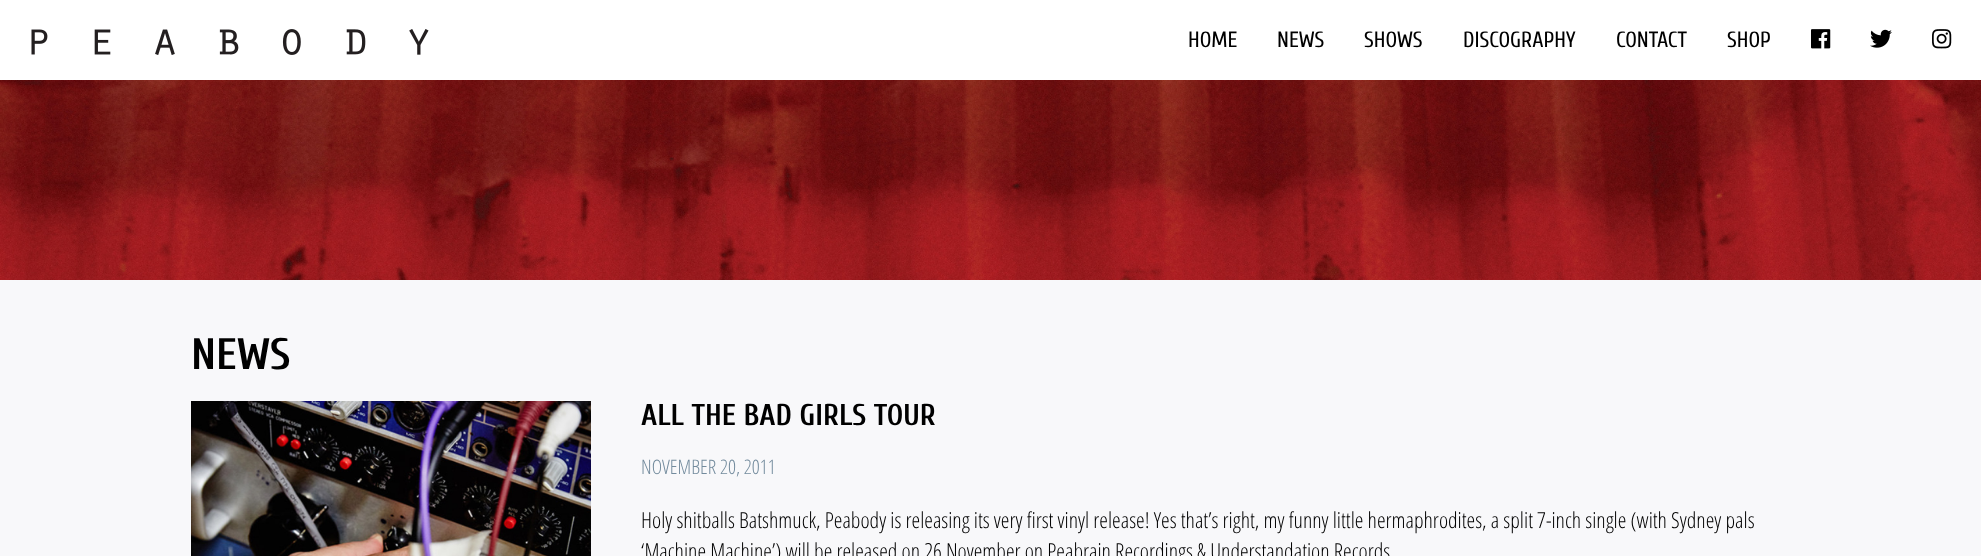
<!DOCTYPE html>
<meta charset="utf-8">
<style>body { margin: 0 } canvas { display: block }</style>
<canvas id="canvas" width="1981" height="556"></canvas>
<img id="img1" src="img_01.png" hidden>
<img id="img2" src="img_02.png" hidden>
<img id="img3" src="img_03.png" hidden>
<img id="img4" src="img_04.png" hidden>
<img id="img5" src="img_05.png" hidden>
<img id="img6" src="img_06.png" hidden>
<script>
window.onload = function () {
	const canvas = document.getElementById("canvas");
	const ctx = canvas.getContext("2d");
	ctx.miterLimit = 4;
	ctx.fontKerning = "normal";
	function txt(s, x, y) {
		ctx.fillText(s, x, y);
	}
	function fill(x, y, w, h) {
		ctx.fillRect(x, y, w, h);
	}
	function img(id, x, y, w, h) {
		ctx.drawImage(document.getElementById(id), x, y, w, h);
	}

	ctx.fillStyle = "#F8F8FA";
	fill(0, 0, 1981, 556);
	ctx.fillStyle = "#FFFFFF";
	fill(0, 0, 1981, 80);
	img("img1", 31, 29, 398, 26);
	img("img2", 1811, 29, 20, 20);
	img("img3", 1870, 29, 22, 19);
	img("img4", 1932, 29, 20, 20);
	img("img5", 0, 80, 1981, 200);
	img("img6", 191, 401, 400, 155);
	ctx.font = "22px Cuprum";
	ctx.fillStyle = "#000000";
	txt("HOME", 1188, 47);
	txt("NEWS", 1277, 47);
	txt("SHOWS", 1364, 47);
	txt("DISCOGRAPHY", 1463, 47);
	txt("CONTACT", 1616, 47);
	txt("SHOP", 1727, 47);
	ctx.font = "bold 44px Cuprum";
	txt("NEWS", 191, 369);
	ctx.font = "bold 30px Cuprum";
	txt("ALL THE BAD GIRLS TOUR", 641, 425);
	ctx.font = "300 20px Open Sans Condensed";
	ctx.fillStyle = "#738B9D";
	txt("NOVEMBER 20, 2011", 641, 474);
	ctx.font = "300 22px Open Sans Condensed";
	ctx.fillStyle = "#000000";
	txt("Holy shitballs Batshmuck, Peabody is releasing its very first vinyl release! Yes that’s right, my funny little hermaphrodites, a split 7-inch single (with Sydney pals", 641, 528);
	txt("‘Machine Machine’) will be released on 26 November on Peabrain Recordings & Understandation Records", 641, 559);
};
</script>
